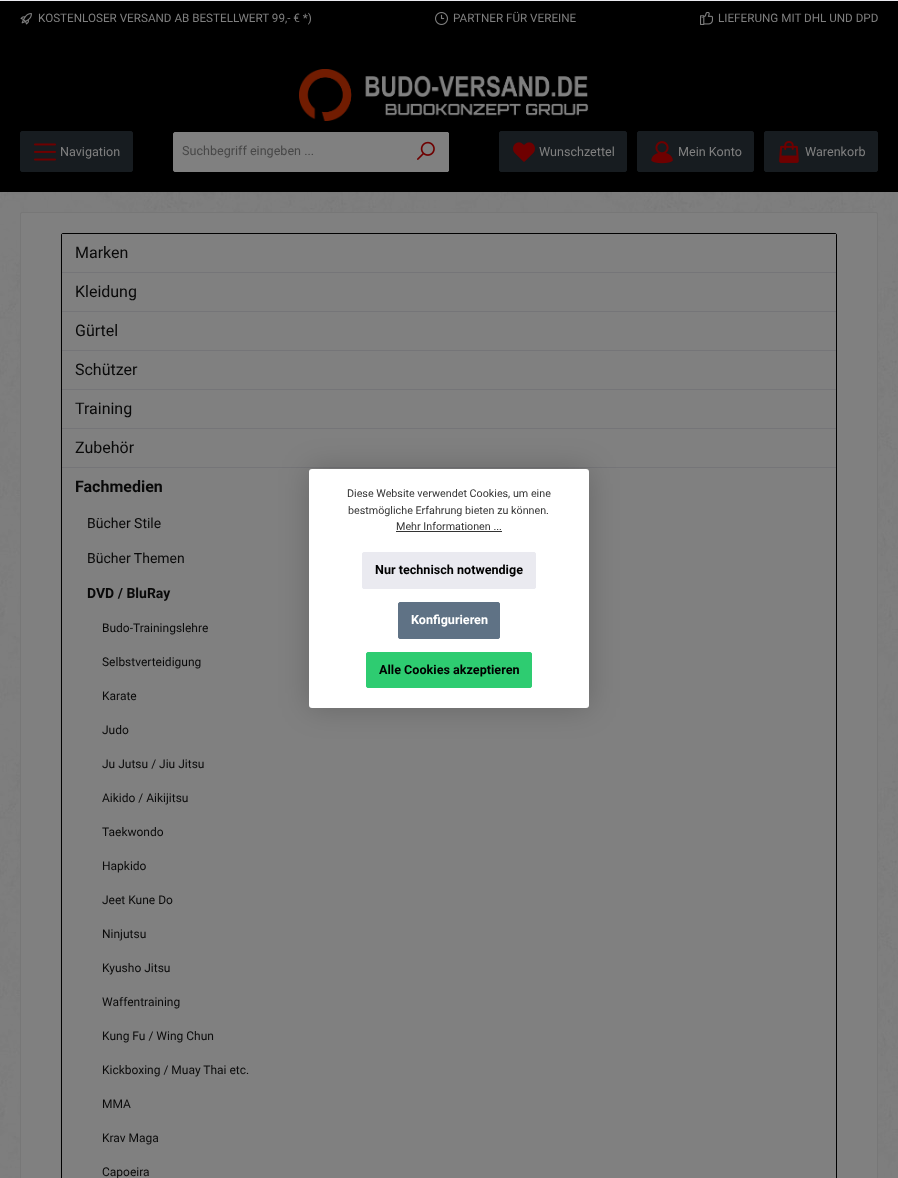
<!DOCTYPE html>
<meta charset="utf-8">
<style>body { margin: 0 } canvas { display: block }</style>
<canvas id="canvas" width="898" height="1178"></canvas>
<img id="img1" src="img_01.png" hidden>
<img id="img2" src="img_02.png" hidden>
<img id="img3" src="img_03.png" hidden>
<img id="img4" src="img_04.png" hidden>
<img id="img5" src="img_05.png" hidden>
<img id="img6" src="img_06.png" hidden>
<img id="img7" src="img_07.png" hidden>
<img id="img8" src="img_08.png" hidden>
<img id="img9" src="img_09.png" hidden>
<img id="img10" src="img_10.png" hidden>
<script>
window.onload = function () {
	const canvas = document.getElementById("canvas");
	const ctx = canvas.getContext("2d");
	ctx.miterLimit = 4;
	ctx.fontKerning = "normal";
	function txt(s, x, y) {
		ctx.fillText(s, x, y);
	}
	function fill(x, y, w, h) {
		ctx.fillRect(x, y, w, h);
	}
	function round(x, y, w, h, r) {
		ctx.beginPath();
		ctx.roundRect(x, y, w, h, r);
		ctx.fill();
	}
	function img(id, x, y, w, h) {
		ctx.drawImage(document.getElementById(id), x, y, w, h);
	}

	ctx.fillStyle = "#FFFFFF";
	fill(0, 0, 898, 1178);
	img("img1", 0, 192, 898, 986);
	ctx.fillStyle = "#000000";
	fill(0, 1, 898, 191);
	img("img2", 20, 13, 12, 12);
	img("img3", 435, 12, 13, 13);
	img("img4", 700, 12, 13, 13);
	img("img5", 299, 69, 290, 52);
	ctx.fillStyle = "#171C20";
	ctx.beginPath();
	ctx.roundRect(20.5, 131.5, 112, 40, 1.5);
	ctx.fill();
	ctx.strokeStyle = "#171C20";
	ctx.stroke();
	img("img6", 34, 143, 22, 18);
	ctx.fillStyle = "#808080";
	ctx.beginPath();
	ctx.roundRect(173.5, 132.5, 231, 39, [1.5, 0, 0, 1.5]);
	ctx.fill();
	ctx.strokeStyle = "#808080";
	ctx.stroke();
	ctx.beginPath();
	ctx.roundRect(404, 132, 45, 40, [0, 2, 2, 0]);
	ctx.fill();
	fill(447, 132, 1, 1);
	fill(448, 133, 1, 38);
	fill(447, 171, 1, 1);
	img("img7", 417, 141, 18, 19);
	ctx.fillStyle = "#171C20";
	ctx.beginPath();
	ctx.roundRect(499.5, 131.5, 127, 40, 1.5);
	ctx.fill();
	ctx.strokeStyle = "#171C20";
	ctx.stroke();
	img("img8", 513, 142, 22, 20);
	ctx.beginPath();
	ctx.roundRect(637.5, 131.5, 116, 40, 1.5);
	ctx.fill();
	ctx.stroke();
	img("img9", 651, 141, 22, 23);
	ctx.beginPath();
	ctx.roundRect(764.5, 131.5, 113, 40, 1.5);
	ctx.fill();
	ctx.stroke();
	img("img10", 779, 141, 20, 22);
	ctx.fillStyle = "#808080";
	ctx.beginPath();
	ctx.roundRect(20.5, 212.5, 857, 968, 1.5);
	ctx.fill();
	ctx.strokeStyle = "#777777";
	ctx.stroke();
	ctx.beginPath();
	ctx.roundRect(61.5, 233.5, 775, 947, 1.5);
	ctx.strokeStyle = "#000000";
	ctx.stroke();
	ctx.fillStyle = "#757578";
	fill(62, 272, 774, 1);
	ctx.fillStyle = "#808080";
	fill(62, 234, 774, 1);
	ctx.fillStyle = "#757578";
	fill(62, 311, 774, 1);
	fill(62, 350, 774, 1);
	fill(62, 389, 774, 1);
	fill(62, 428, 774, 1);
	fill(62, 467, 774, 1);
	ctx.fillStyle = "#EAEAF0";
	fill(0, 0, 898, 1);
	ctx.fillStyle = "rgba(0, 0, 0, 0.2)";
	ctx.filter = "blur(15px)";
	ctx.beginPath();
	ctx.roundRect(309, 469, 280, 239, 3);
	ctx.fill();
	ctx.filter = "none";
	ctx.fillStyle = "#FFFFFF";
	round(309, 469, 280, 239, 3);
	ctx.fillStyle = "#333333";
	fill(396, 531, 106, 1);
	ctx.fillStyle = "#EAEAF0";
	ctx.beginPath();
	ctx.roundRect(362.5, 552.5, 173, 36, 1.5);
	ctx.fill();
	ctx.strokeStyle = "#EAEAF0";
	ctx.stroke();
	ctx.fillStyle = "#5F7285";
	ctx.beginPath();
	ctx.roundRect(398.5, 602.5, 101, 36, 1.5);
	ctx.fill();
	ctx.strokeStyle = "#5F7285";
	ctx.stroke();
	ctx.fillStyle = "#2ECC71";
	ctx.beginPath();
	ctx.roundRect(366.5, 652.5, 165, 35, 1.5);
	ctx.fill();
	ctx.strokeStyle = "#2ECC71";
	ctx.stroke();
	ctx.font = "11.7px Roboto";
	ctx.fillStyle = "#808080";
	txt("KOSTENLOSER VERSAND AB BESTELLWERT 99,- € *)", 38, 22);
	txt("PARTNER FÜR VEREINE", 453, 22);
	txt("LIEFERUNG MIT DHL UND DPD", 718, 22);
	ctx.font = "12.6px Roboto";
	txt("Navigation", 60, 156);
	ctx.fillStyle = "#474747";
	txt("Suchbegriff eingeben ...", 182, 155);
	ctx.fillStyle = "#808080";
	txt("Wunschzettel", 539, 156);
	txt("Mein Konto", 678, 156);
	txt("Warenkorb", 805, 156);
	ctx.font = "16px Roboto";
	ctx.fillStyle = "#090909";
	txt("Marken", 75, 258);
	txt("Kleidung", 75, 297);
	txt("Gürtel", 75, 336);
	txt("Schützer", 75, 375);
	txt("Training", 75, 414);
	txt("Zubehör", 75, 453);
	ctx.font = "bold 16px Roboto";
	txt("Fachmedien", 75, 492);
	ctx.font = "14px Roboto";
	txt("Bücher Stile", 87, 528);
	txt("Bücher Themen", 87, 563);
	ctx.font = "bold 14px Roboto";
	txt("DVD / BluRay", 87, 598);
	ctx.font = "12px Roboto";
	txt("Budo-Trainingslehre", 102, 632);
	txt("Selbstverteidigung", 102, 666);
	txt("Karate", 102, 700);
	txt("Judo", 102, 734);
	txt("Ju Jutsu / Jiu Jitsu", 102, 768);
	txt("Aikido / Aikijitsu", 102, 802);
	txt("Taekwondo", 102, 836);
	txt("Hapkido", 102, 870);
	txt("Jeet Kune Do", 102, 904);
	txt("Ninjutsu", 102, 938);
	txt("Kyusho Jitsu", 102, 972);
	txt("Waffentraining", 102, 1006);
	txt("Kung Fu / Wing Chun", 102, 1040);
	txt("Kickboxing / Muay Thai etc.", 102, 1074);
	txt("MMA", 102, 1108);
	txt("Krav Maga", 102, 1142);
	txt("Capoeira", 102, 1176);
	ctx.font = "10.75px Roboto";
	ctx.fillStyle = "#333333";
	txt("Diese Website verwendet Cookies, um eine", 347, 497);
	txt("bestmögliche Erfahrung bieten zu können.", 348, 514);
	txt("Mehr Informationen ...", 396, 530);
	ctx.font = "bold 12.6px Roboto";
	ctx.fillStyle = "#000000";
	txt("Nur technisch notwendige", 375, 574);
	ctx.fillStyle = "#FFFFFF";
	txt("Konfigurieren", 411, 624);
	ctx.fillStyle = "#000000";
	txt("Alle Cookies akzeptieren", 379, 674);
};
</script>
